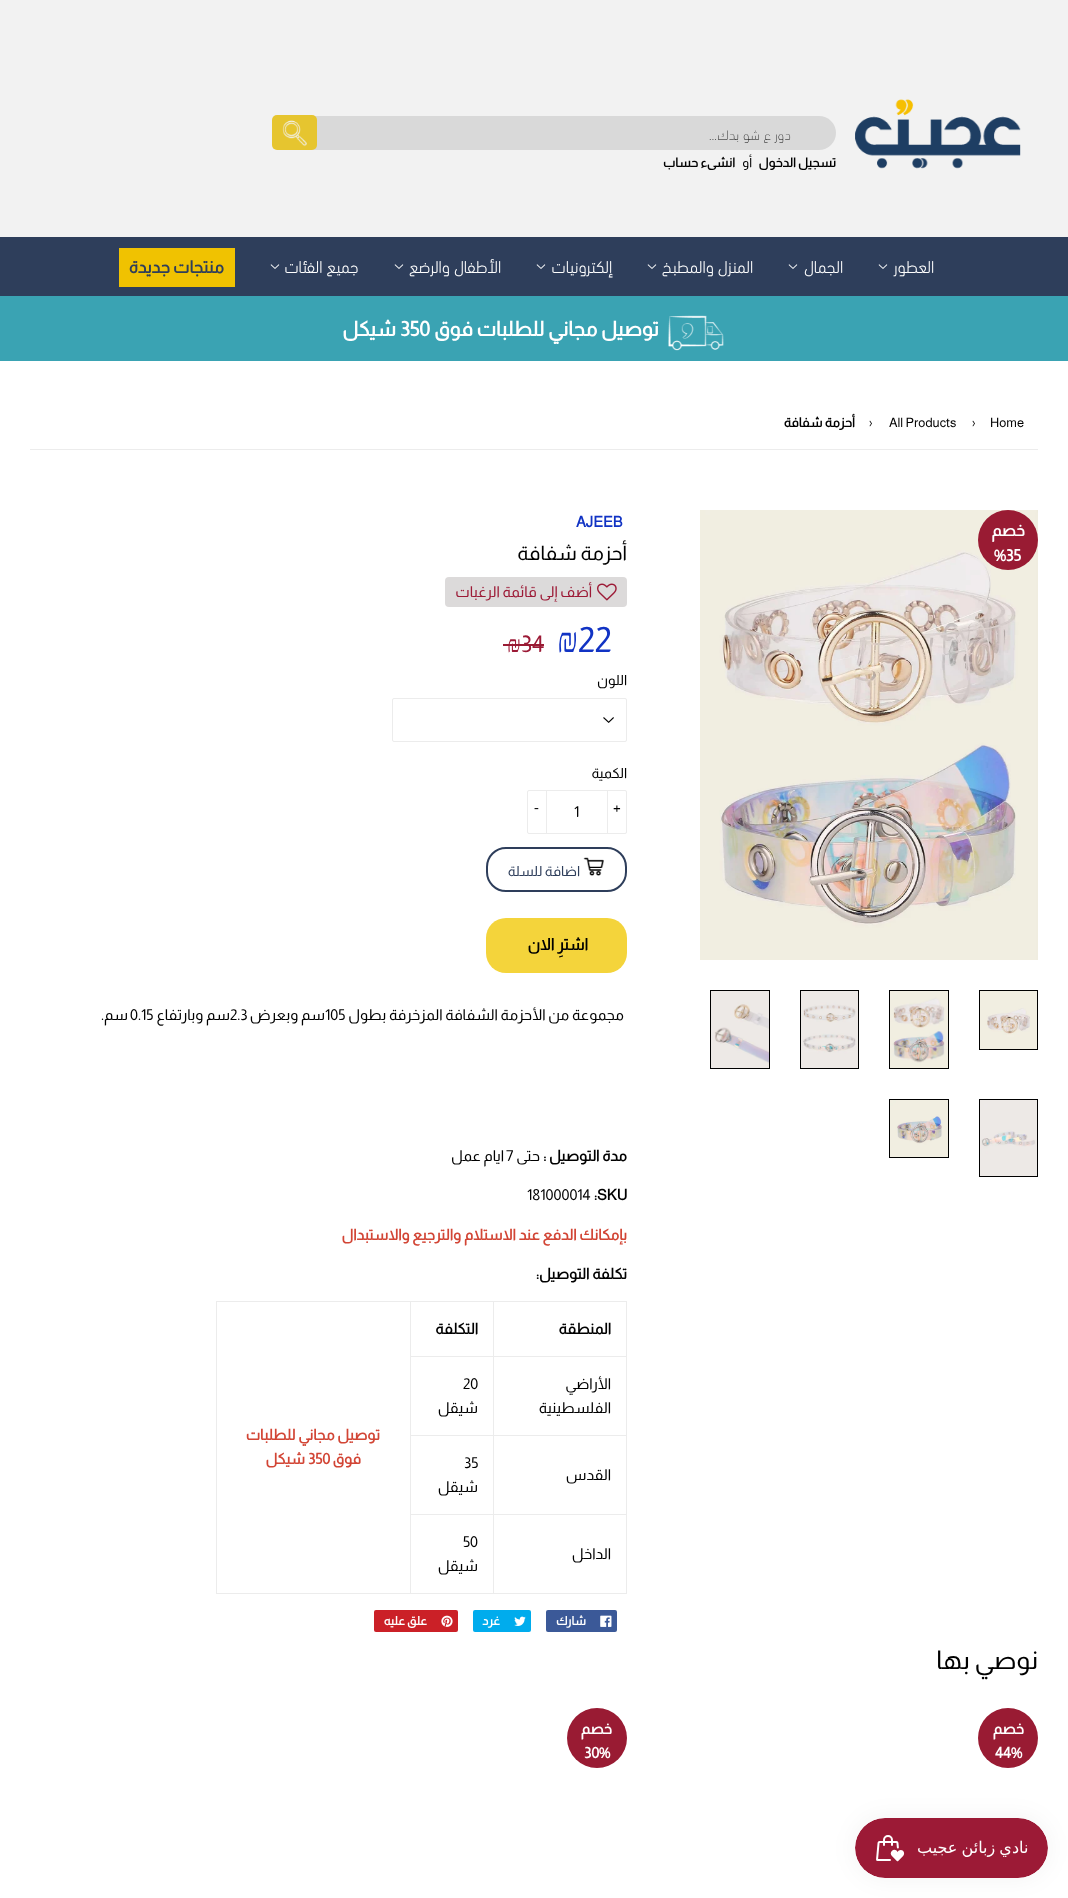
<!DOCTYPE html>
<meta charset="utf-8">
<style>body { margin: 0 } canvas { display: block }</style>
<canvas id="canvas" width="1068" height="1898"></canvas>
<img id="img1" src="img_01.png" hidden>
<img id="img2" src="img_02.png" hidden>
<img id="img3" src="img_03.png" hidden>
<img id="img4" src="img_04.png" hidden>
<img id="img5" src="img_05.png" hidden>
<img id="img6" src="img_06.png" hidden>
<img id="img7" src="img_07.png" hidden>
<img id="img8" src="img_08.png" hidden>
<img id="img9" src="img_09.png" hidden>
<img id="img10" src="img_10.png" hidden>
<img id="img11" src="img_11.png" hidden>
<img id="img12" src="img_12.png" hidden>
<img id="img13" src="img_13.png" hidden>
<img id="img14" src="img_14.png" hidden>
<img id="img15" src="img_15.png" hidden>
<img id="img16" src="img_16.png" hidden>
<img id="img17" src="img_17.png" hidden>
<img id="img18" src="img_18.png" hidden>
<script>
window.onload = function () {
	const canvas = document.getElementById("canvas");
	const ctx = canvas.getContext("2d");
	ctx.miterLimit = 4;
	ctx.fontKerning = "normal";
	function txt(s, x, y) {
		ctx.fillText(s, x, y);
	}
	function fill(x, y, w, h) {
		ctx.fillRect(x, y, w, h);
	}
	function round(x, y, w, h, r) {
		ctx.beginPath();
		ctx.roundRect(x, y, w, h, r);
		ctx.fill();
	}
	function img(id, x, y, w, h) {
		ctx.drawImage(document.getElementById(id), x, y, w, h);
	}

	ctx.fillStyle = "#FFFFFF";
	fill(0, 0, 1068, 1898);
	ctx.fillStyle = "#F2F2F2";
	fill(0, 0, 1068, 237);
	img("img1", 855, 99, 166, 70);
	ctx.fillStyle = "#D9D9D9";
	round(272, 116, 564, 34, 17);
	ctx.fillStyle = "#E6C52F";
	round(272, 115, 45, 35, 5);
	img("img2", 282, 120, 25, 27);
	ctx.fillStyle = "#2E3E5B";
	fill(0, 237, 1068, 59);
	img("img3", 878, 264, 10, 5);
	img("img3", 788, 264, 10, 5);
	img("img3", 647, 264, 10, 5);
	img("img3", 536, 264, 10, 5);
	img("img3", 394, 264, 10, 5);
	img("img3", 270, 264, 10, 5);
	ctx.fillStyle = "#F0C201";
	fill(119, 248, 116, 39);
	ctx.fillStyle = "#3AA3B3";
	fill(0, 296, 1068, 65);
	img("img4", 668, 315, 56, 36);
	ctx.fillStyle = "#ECECEC";
	fill(30, 449, 1008, 1);
	img("img5", 700, 510, 338, 450);
	ctx.fillStyle = "#991B33";
	ctx.beginPath();
	ctx.arc(1008, 540, 30, 0, Math.PI * 2);
	ctx.fill();
	ctx.strokeStyle = "#000000";
	ctx.strokeRect(979.5, 990.5, 58, 59);
	img("img6", 980, 991, 57, 58);
	ctx.strokeRect(889.5, 990.5, 59, 78);
	img("img7", 890, 991, 58, 77);
	ctx.strokeRect(800.5, 990.5, 58, 78);
	img("img8", 801, 991, 57, 77);
	ctx.strokeRect(710.5, 990.5, 59, 78);
	img("img9", 711, 991, 58, 77);
	ctx.strokeRect(979.5, 1099.5, 58, 77);
	img("img10", 980, 1100, 57, 76);
	ctx.strokeRect(889.5, 1099.5, 59, 58);
	img("img11", 890, 1100, 58, 57);
	ctx.fillStyle = "#DCDADA";
	round(445, 577, 182, 30, 4);
	img("img12", 597, 583, 20, 18);
	img("img13", 603, 717, 11, 6);
	ctx.beginPath();
	ctx.roundRect(392.5, 698.5, 234, 43, 1.5);
	ctx.strokeStyle = "#ECECEC";
	ctx.stroke();
	ctx.beginPath();
	ctx.roundRect(527.5, 790.5, 99, 43, 1.5);
	ctx.stroke();
	ctx.fillStyle = "#ECECEC";
	fill(607, 790, 1, 44);
	fill(546, 790, 1, 44);
	ctx.beginPath();
	ctx.roundRect(487, 848, 139, 43, 19);
	ctx.strokeStyle = "#2E3E5B";
	ctx.lineWidth = 2;
	ctx.stroke();
	img("img14", 583, 857, 21, 19);
	ctx.fillStyle = "#F4D43B";
	round(486, 918, 141, 55, 20);
	ctx.fillStyle = "#ECECEC";
	fill(493, 1301, 134, 1);
	fill(493, 1356, 134, 1);
	fill(493, 1435, 134, 1);
	fill(493, 1514, 134, 1);
	fill(626, 1514, 1, 80);
	fill(626, 1435, 1, 80);
	fill(626, 1356, 1, 80);
	fill(626, 1301, 1, 56);
	fill(493, 1593, 134, 1);
	fill(493, 1514, 1, 80);
	fill(410, 1514, 84, 1);
	fill(493, 1435, 1, 80);
	fill(410, 1435, 84, 1);
	fill(493, 1356, 1, 80);
	fill(410, 1356, 84, 1);
	fill(493, 1301, 1, 56);
	fill(410, 1301, 84, 1);
	fill(410, 1593, 84, 1);
	fill(410, 1514, 1, 80);
	fill(410, 1435, 1, 80);
	fill(410, 1356, 1, 80);
	fill(410, 1301, 1, 56);
	fill(216, 1301, 195, 1);
	fill(216, 1593, 195, 1);
	fill(216, 1301, 1, 293);
	ctx.fillStyle = "#3B5998";
	round(546, 1610, 71, 22, 2);
	img("img15", 600, 1615, 12, 12);
	ctx.fillStyle = "#00ACED";
	round(473, 1610, 58, 22, 2);
	img("img16", 514, 1616, 12, 10);
	ctx.fillStyle = "#CB2027";
	round(374, 1610, 84, 22, 2);
	img("img17", 441, 1615, 12, 12);
	ctx.fillStyle = "#991B33";
	ctx.beginPath();
	ctx.arc(1008, 1738, 30, 0, Math.PI * 2);
	ctx.fill();
	ctx.beginPath();
	ctx.arc(597, 1738, 30, 0, Math.PI * 2);
	ctx.fill();
	ctx.fillStyle = "rgba(0, 0, 0, 0.05)";
	ctx.filter = "blur(12.5px)";
	ctx.beginPath();
	ctx.roundRect(855, 1818, 193, 60, 30);
	ctx.fill();
	ctx.filter = "none";
	img("img18", 855, 1818, 193, 60);
	ctx.direction = "rtl";
	ctx.font = "200 14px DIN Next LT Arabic";
	ctx.fillStyle = "#000000";
	txt("دور ع شو بدك...", 791, 140);
	ctx.font = "bold 12.75px Almarai";
	txt("تسجيل الدخول", 836, 167);
	ctx.font = "12.75px Almarai";
	txt("أو", 752, 167);
	ctx.font = "bold 12.75px Almarai";
	txt("انشىء حساب", 735, 167);
	ctx.font = "bold 17px DIN Next LT Arabic";
	ctx.fillStyle = "#FFFFFF";
	txt("العطور", 934, 273);
	txt("الجمال", 843, 273);
	txt("المنزل والمطبخ", 753, 273);
	txt("إلكترونيات", 612, 273);
	txt("الأطفال والرضع", 501, 273);
	txt("جميع الفئات", 358, 273);
	ctx.font = "bold 17px Almarai";
	ctx.fillStyle = "#2E3E5B";
	txt("منتجات جديدة", 224, 273);
	ctx.font = "bold 20.4px Almarai";
	ctx.fillStyle = "#FFFFFF";
	txt("توصيل مجاني للطلبات فوق", 659, 336);
	ctx.direction = "ltr";
	txt("350", 400, 336);
	ctx.direction = "rtl";
	txt("شيكل", 396, 336);
	ctx.direction = "ltr";
	ctx.font = "13px Almarai";
	ctx.fillStyle = "#000000";
	txt("Home", 990, 427);
	txt("›", 972, 427);
	txt("All Products", 889, 427);
	txt("›", 869, 427);
	ctx.direction = "rtl";
	ctx.font = "bold 13px Almarai";
	txt("أحزمة شفافة", 855, 427);
	ctx.font = "bold 16px Almarai";
	ctx.fillStyle = "#FFFFFF";
	txt("خصم", 1025, 536);
	ctx.direction = "ltr";
	txt("%35", 994, 561);
	ctx.font = "bold 15px Almarai";
	ctx.fillStyle = "#1133C4";
	txt("AJEEB", 576, 527);
	ctx.direction = "rtl";
	ctx.font = "20px Almarai";
	ctx.fillStyle = "#000000";
	txt("أحزمة شفافة", 627, 560);
	ctx.font = "15px Almarai";
	ctx.fillStyle = "#9C1A36";
	txt("أضف إلى قائمة الرغبات", 592, 597);
	ctx.direction = "ltr";
	ctx.font = "35px Almarai";
	ctx.fillStyle = "#1133C4";
	txt("22", 578, 652);
	ctx.font = "35px Liberation Serif";
	txt("₪", 557, 652);
	ctx.font = "23px Almarai";
	ctx.fillStyle = "#9C1A36";
	txt("34", 521, 652);
	ctx.font = "23px Liberation Serif";
	txt("₪", 507, 652);
	ctx.fillStyle = "#991B33";
	fill(503, 644, 18, 2);
	fill(521, 644, 23, 2);
	ctx.direction = "rtl";
	ctx.font = "14px Almarai";
	ctx.fillStyle = "#000000";
	txt("اللون", 627, 685);
	txt("الكمية", 627, 778);
	ctx.direction = "ltr";
	ctx.font = "15px Almarai";
	txt("+", 613, 812);
	txt("1", 574, 817);
	txt("-", 534, 812);
	ctx.direction = "rtl";
	ctx.font = "14px Almarai";
	ctx.fillStyle = "#2E3E5B";
	txt("اضافة للسلة", 580, 876);
	ctx.font = "bold 16px Almarai";
	ctx.fillStyle = "#000000";
	txt("اشترِ الان", 588, 950);
	ctx.font = "15px Almarai";
	txt("مجموعة من الأحزمة الشفافة المزخرفة بطول", 624, 1020);
	ctx.direction = "ltr";
	txt("105", 325, 1020);
	ctx.direction = "rtl";
	txt("سم وبعرض", 325, 1020);
	ctx.direction = "ltr";
	txt("2.3", 230, 1020);
	ctx.direction = "rtl";
	txt("سم وبارتفاع", 230, 1020);
	ctx.direction = "ltr";
	txt("0.15", 130, 1020);
	ctx.direction = "rtl";
	txt("سم.", 128, 1020);
	ctx.font = "bold 15px Almarai";
	txt("مدة التوصيل :", 627, 1161);
	ctx.font = "15px Almarai";
	txt("حتى", 540, 1161);
	ctx.direction = "ltr";
	txt("7", 506, 1161);
	ctx.direction = "rtl";
	txt("ايام عمل", 504, 1161);
	ctx.direction = "ltr";
	ctx.font = "bold 15px Almarai";
	txt(":SKU", 594, 1200);
	ctx.font = "15px Almarai";
	txt("181000014", 527, 1200);
	ctx.direction = "rtl";
	ctx.font = "bold 15px Almarai";
	ctx.fillStyle = "#D24535";
	txt("بإمكانك الدفع عند الاستلام", 627, 1240);
	txt("والترجيع والاستبدال", 461, 1240);
	ctx.fillStyle = "#000000";
	txt("تكلفة التوصيل:", 627, 1279);
	txt("المنطقة", 611, 1334);
	txt("التكلفة", 478, 1334);
	ctx.fillStyle = "#D24535";
	txt("توصيل مجاني للطلبات", 380, 1440);
	txt("فوق", 361, 1464);
	ctx.direction = "ltr";
	txt("350", 308, 1464);
	ctx.direction = "rtl";
	txt("شيكل", 305, 1464);
	ctx.font = "15px Almarai";
	ctx.fillStyle = "#000000";
	txt("الأراضي", 611, 1389);
	txt("الفلسطينية", 611, 1413);
	ctx.direction = "ltr";
	txt("20", 463, 1389);
	ctx.direction = "rtl";
	txt("شيقل", 478, 1413);
	txt("القدس", 611, 1480);
	ctx.direction = "ltr";
	txt("35", 464, 1468);
	ctx.direction = "rtl";
	txt("شيقل", 478, 1492);
	txt("الداخل", 611, 1559);
	ctx.direction = "ltr";
	txt("50", 463, 1547);
	ctx.direction = "rtl";
	txt("شيقل", 478, 1571);
	ctx.font = "bold 12px Almarai";
	ctx.fillStyle = "#FFFFFF";
	txt("شارك", 586, 1625);
	txt("غرد", 500, 1625);
	txt("علق عليه", 427, 1625);
	ctx.font = "26px Almarai";
	ctx.fillStyle = "#000000";
	txt("نوصي بها", 1038, 1669);
	ctx.font = "bold 15px Almarai";
	ctx.fillStyle = "#FFFFFF";
	txt("خصم", 1024, 1734);
	ctx.direction = "ltr";
	txt("44%", 995, 1758);
	ctx.direction = "rtl";
	txt("خصم", 612, 1734);
	ctx.direction = "ltr";
	txt("30%", 584, 1758);
};
</script>
